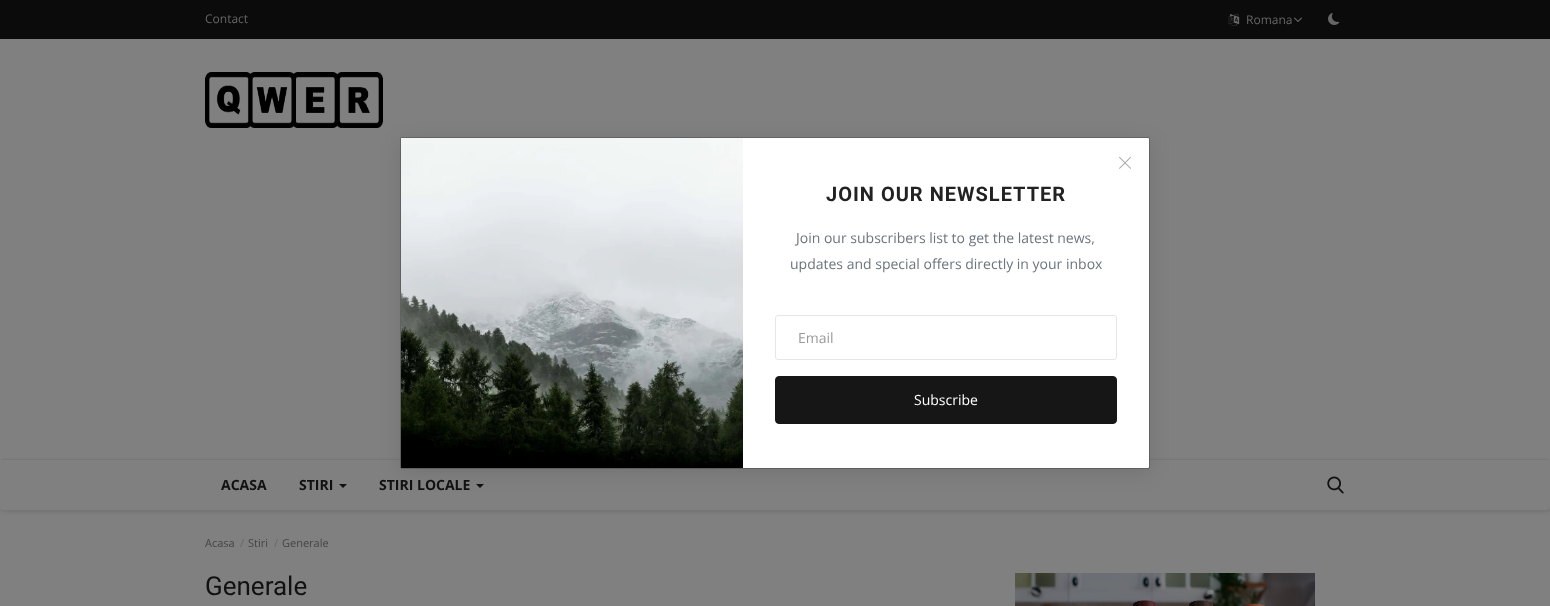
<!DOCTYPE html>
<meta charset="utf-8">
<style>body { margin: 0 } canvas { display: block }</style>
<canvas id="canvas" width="1550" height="606"></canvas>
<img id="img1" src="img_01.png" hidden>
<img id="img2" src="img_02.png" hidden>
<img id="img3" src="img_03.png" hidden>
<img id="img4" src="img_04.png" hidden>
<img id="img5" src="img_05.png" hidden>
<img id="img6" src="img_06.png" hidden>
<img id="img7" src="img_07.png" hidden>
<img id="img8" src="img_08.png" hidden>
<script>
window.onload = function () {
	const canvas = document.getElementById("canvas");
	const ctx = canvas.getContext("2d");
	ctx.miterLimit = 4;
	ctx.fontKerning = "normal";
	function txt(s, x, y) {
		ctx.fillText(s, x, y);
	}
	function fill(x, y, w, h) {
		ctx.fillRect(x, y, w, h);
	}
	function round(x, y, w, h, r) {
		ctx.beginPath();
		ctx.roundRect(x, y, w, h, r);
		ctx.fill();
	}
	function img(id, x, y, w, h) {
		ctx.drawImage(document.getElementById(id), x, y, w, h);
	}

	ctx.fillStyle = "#808080";
	fill(0, 0, 1550, 606);
	ctx.fillStyle = "#0B0B0B";
	fill(0, 0, 1550, 39);
	img("img1", 1228, 13, 12, 13);
	img("img2", 1294, 17, 8, 5);
	img("img3", 1328, 13, 12, 12);
	img("img4", 205, 72, 178, 56);
	ctx.fillStyle = "rgba(0, 0, 0, 0.1)";
	ctx.filter = "blur(2px)";
	ctx.beginPath();
	ctx.roundRect(1, 461, 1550, 51, 4);
	ctx.fill();
	ctx.filter = "none";
	ctx.fillStyle = "#808080";
	round(0, 459, 1550, 51, 4);
	ctx.fillStyle = "#777777";
	fill(2, 459, 1546, 1);
	ctx.fillStyle = "#111111";
	ctx.beginPath();
	ctx.moveTo(339, 484);
	ctx.lineTo(347, 484);
	ctx.lineTo(343, 488);
	ctx.closePath();
	ctx.fill();
	ctx.beginPath();
	ctx.moveTo(476, 484);
	ctx.lineTo(484, 484);
	ctx.lineTo(480, 488);
	ctx.closePath();
	ctx.fill();
	img("img5", 1327, 476, 17, 18);
	ctx.fillStyle = "rgba(0, 0, 0, 0.1)";
	ctx.filter = "blur(10px)";
	ctx.beginPath();
	ctx.roundRect(400, 141, 750, 332, 2);
	ctx.fill();
	ctx.filter = "none";
	ctx.fillStyle = "#FFFFFF";
	round(401, 138, 748, 330, 1);
	ctx.beginPath();
	ctx.roundRect(400.5, 137.5, 749, 331, 1.5);
	ctx.strokeStyle = "rgba(0, 0, 0, 0.2)";
	ctx.stroke();
	img("img6", 401, 138, 342, 330);
	img("img7", 1119, 156, 12, 13);
	ctx.beginPath();
	ctx.roundRect(775.5, 315.5, 341, 44, 2.5);
	ctx.strokeStyle = "#E6E6E6";
	ctx.stroke();
	ctx.fillStyle = "#161616";
	ctx.beginPath();
	ctx.roundRect(775.5, 376.5, 341, 47, 3.5);
	ctx.fill();
	ctx.strokeStyle = "#161616";
	ctx.stroke();
	img("img8", 1015, 573, 300, 33);
	ctx.font = "12px Open Sans";
	ctx.fillStyle = "#666666";
	txt("Contact", 205, 23);
	txt("Romana", 1246, 24);
	ctx.font = "bold 14px Open Sans";
	ctx.fillStyle = "#111111";
	txt("ACASA", 221, 490);
	txt("STIRI", 299, 490);
	txt("STIRI LOCALE", 379, 490);
	ctx.letterSpacing = "1px";
	ctx.font = "bold 20px Roboto";
	ctx.fillStyle = "#222222";
	txt("JOIN OUR NEWSLETTER", 826, 201);
	ctx.letterSpacing = "0px";
	ctx.font = "14px Open Sans";
	ctx.fillStyle = "#6C757D";
	txt("Join our subscribers list to get the latest news,", 796, 243);
	txt("updates and special offers directly in your inbox", 790, 269);
	ctx.fillStyle = "#999999";
	txt("Email", 798, 343);
	ctx.fillStyle = "#FFFFFF";
	txt("Subscribe", 914, 405);
	ctx.font = "11px Open Sans";
	ctx.fillStyle = "#444444";
	txt("Acasa", 205, 547);
	ctx.fillStyle = "#666666";
	txt("/", 240, 547);
	ctx.fillStyle = "#444444";
	txt("Stiri", 248, 547);
	ctx.fillStyle = "#666666";
	txt("/", 274, 547);
	ctx.fillStyle = "#444444";
	txt("Generale", 282, 547);
	ctx.font = "26px Roboto";
	ctx.fillStyle = "#111111";
	txt("Generale", 205, 595);
};
</script>
